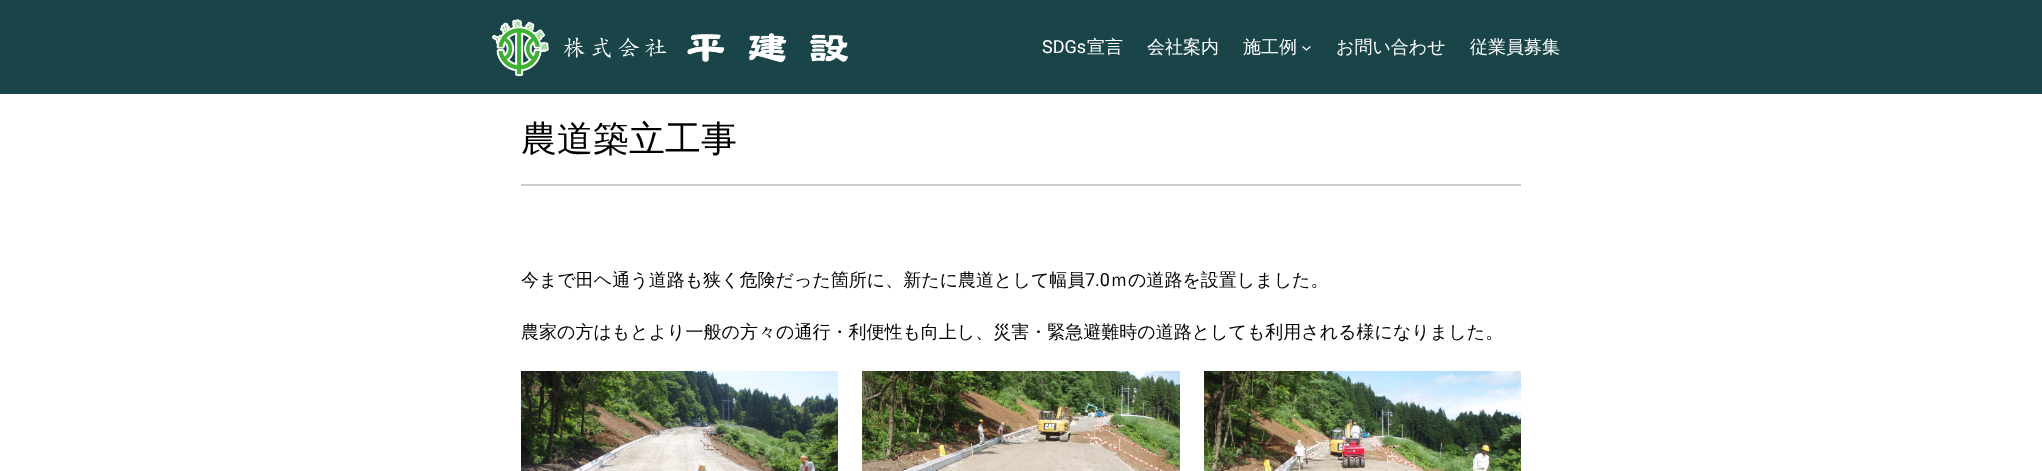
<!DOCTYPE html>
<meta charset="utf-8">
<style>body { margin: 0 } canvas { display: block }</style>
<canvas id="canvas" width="2042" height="471"></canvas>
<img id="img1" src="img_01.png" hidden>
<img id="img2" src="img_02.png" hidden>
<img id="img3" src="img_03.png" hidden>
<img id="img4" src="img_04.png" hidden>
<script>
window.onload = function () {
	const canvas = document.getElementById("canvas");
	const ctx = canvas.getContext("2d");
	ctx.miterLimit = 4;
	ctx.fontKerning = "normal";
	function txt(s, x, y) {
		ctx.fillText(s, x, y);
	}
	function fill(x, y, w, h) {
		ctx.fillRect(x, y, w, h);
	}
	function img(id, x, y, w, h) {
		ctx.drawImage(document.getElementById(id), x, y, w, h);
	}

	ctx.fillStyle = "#FFFFFF";
	fill(0, 0, 2042, 471);
	ctx.fillStyle = "#1A4548";
	fill(0, 0, 2042, 94);
	img("img1", 491, 19, 357, 58);
	ctx.beginPath();
	ctx.moveTo(1302.5, 46.5);
	ctx.lineTo(1306.5, 50);
	ctx.lineTo(1310.5, 46.5);
	ctx.strokeStyle = "#FFFFFF";
	ctx.lineWidth = 1.3;
	ctx.stroke();
	ctx.fillStyle = "#CCCCCC";
	fill(521, 184, 1000, 2);
	img("img2", 521, 371, 317, 100);
	img("img3", 862, 371, 318, 100);
	img("img4", 1204, 371, 317, 100);
	ctx.font = "18px Roboto";
	ctx.fillStyle = "#FFFFFF";
	txt("SDGs", 1042, 53);
	ctx.font = "500 18px WenQuanYi Zen Hei";
	txt("宣言", 1087, 53);
	txt("会社案内", 1147, 53);
	txt("施工例", 1243, 53);
	txt("お問い合わせ", 1336, 53);
	txt("従業員募集", 1470, 53);
	ctx.font = "500 36px WenQuanYi Zen Hei";
	ctx.fillStyle = "#000000";
	txt("農道築立工事", 521, 151);
	ctx.font = "500 18px WenQuanYi Zen Hei";
	txt("今まで田ヘ通う道路も狭く危険だった箇所に、新たに農道として幅員", 521, 286);
	ctx.font = "18px Roboto";
	txt("7.0", 1085, 286);
	ctx.font = "500 18px WenQuanYi Zen Hei";
	txt("ｍの道路を設置しました。", 1110, 286);
	txt("農家の方はもとより一般の方々の通行・利便性も向上し、災害・緊急避難時の道路としても利用される様になりました。", 521, 338);
};
</script>
